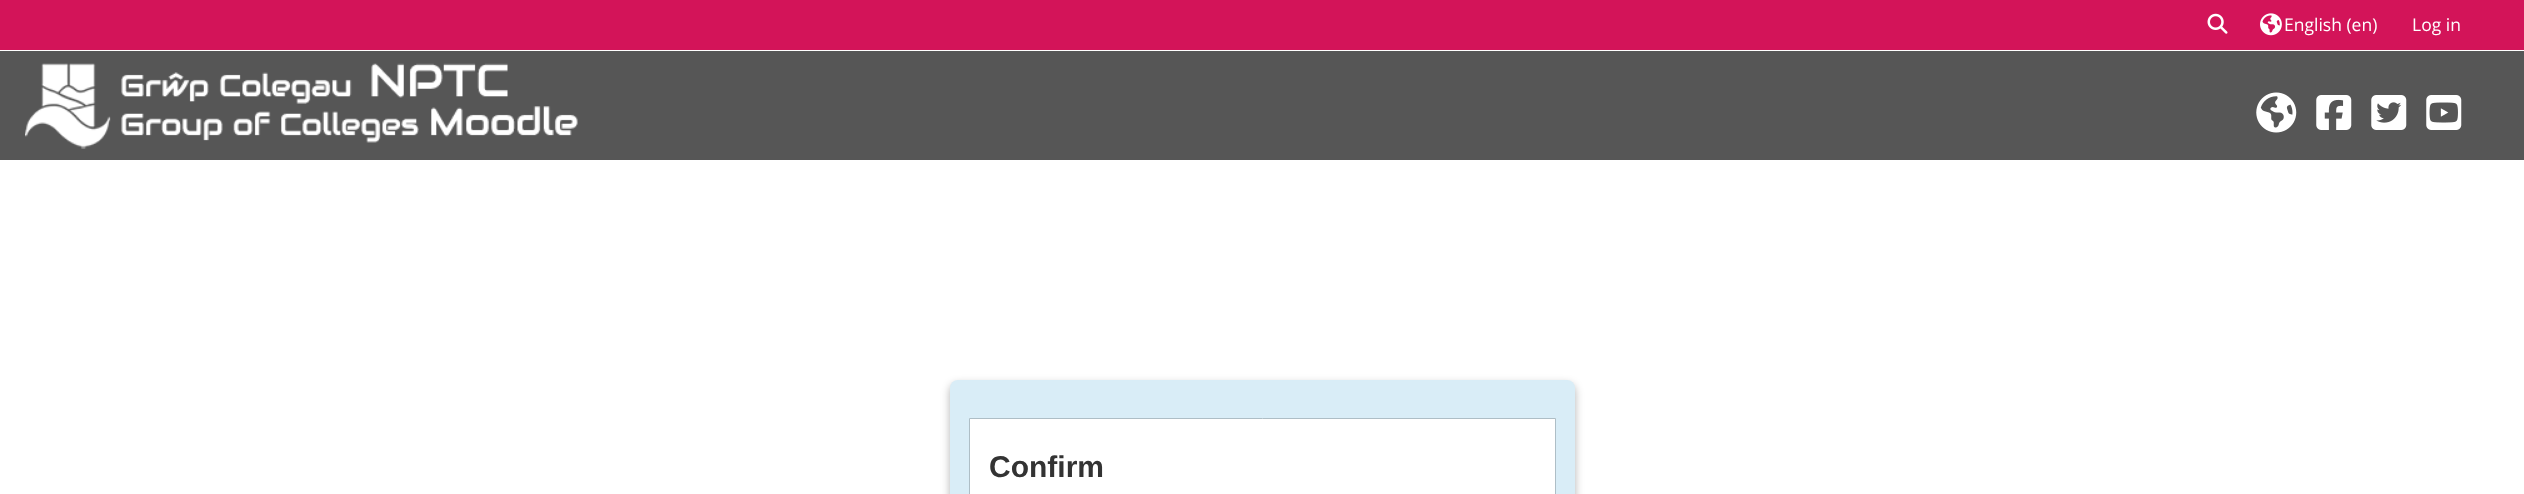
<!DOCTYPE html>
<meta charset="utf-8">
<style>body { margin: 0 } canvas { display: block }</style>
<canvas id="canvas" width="2524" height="494"></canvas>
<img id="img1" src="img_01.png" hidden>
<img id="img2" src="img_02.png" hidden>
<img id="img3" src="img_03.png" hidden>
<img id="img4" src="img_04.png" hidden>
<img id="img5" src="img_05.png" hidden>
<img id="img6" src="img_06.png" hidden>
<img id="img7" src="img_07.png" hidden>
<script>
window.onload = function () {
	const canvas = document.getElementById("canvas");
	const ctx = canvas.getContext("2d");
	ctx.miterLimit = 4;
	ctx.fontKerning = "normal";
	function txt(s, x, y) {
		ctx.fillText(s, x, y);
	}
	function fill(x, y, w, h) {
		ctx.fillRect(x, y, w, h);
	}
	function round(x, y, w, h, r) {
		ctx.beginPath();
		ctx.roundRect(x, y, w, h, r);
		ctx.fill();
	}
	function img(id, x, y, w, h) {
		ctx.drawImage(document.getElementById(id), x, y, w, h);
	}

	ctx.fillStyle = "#FFFFFF";
	fill(0, 0, 2524, 494);
	ctx.fillStyle = "#565656";
	fill(0, 51, 2524, 109);
	ctx.fillStyle = "#D31459";
	fill(0, 0, 2524, 50);
	img("img1", 2207, 13, 21, 21);
	img("img2", 2260, 13, 22, 23);
	img("img3", 25, 63, 553, 86);
	img("img4", 2256, 92, 41, 41);
	img("img5", 2316, 95, 36, 35);
	img("img6", 2371, 95, 36, 35);
	img("img7", 2426, 95, 36, 35);
	ctx.fillStyle = "rgba(0, 0, 0, 0.3)";
	ctx.filter = "blur(4.5px)";
	ctx.beginPath();
	ctx.roundRect(950, 384, 625, 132, 8);
	ctx.fill();
	ctx.filter = "none";
	ctx.fillStyle = "#D9EDF7";
	round(950, 380, 625, 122, 8);
	ctx.fillStyle = "#FFFFFF";
	ctx.beginPath();
	ctx.rect(969.5, 418.5, 586, 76);
	ctx.fill();
	ctx.strokeStyle = "#AEBEC6";
	ctx.stroke();
	ctx.font = "17.5px Open Sans";
	txt("English (en)", 2284, 31);
	txt("Log in", 2412, 31);
	ctx.font = "bold 30px Liberation Sans";
	ctx.fillStyle = "#333333";
	txt("Confirm", 989, 477);
};
</script>
